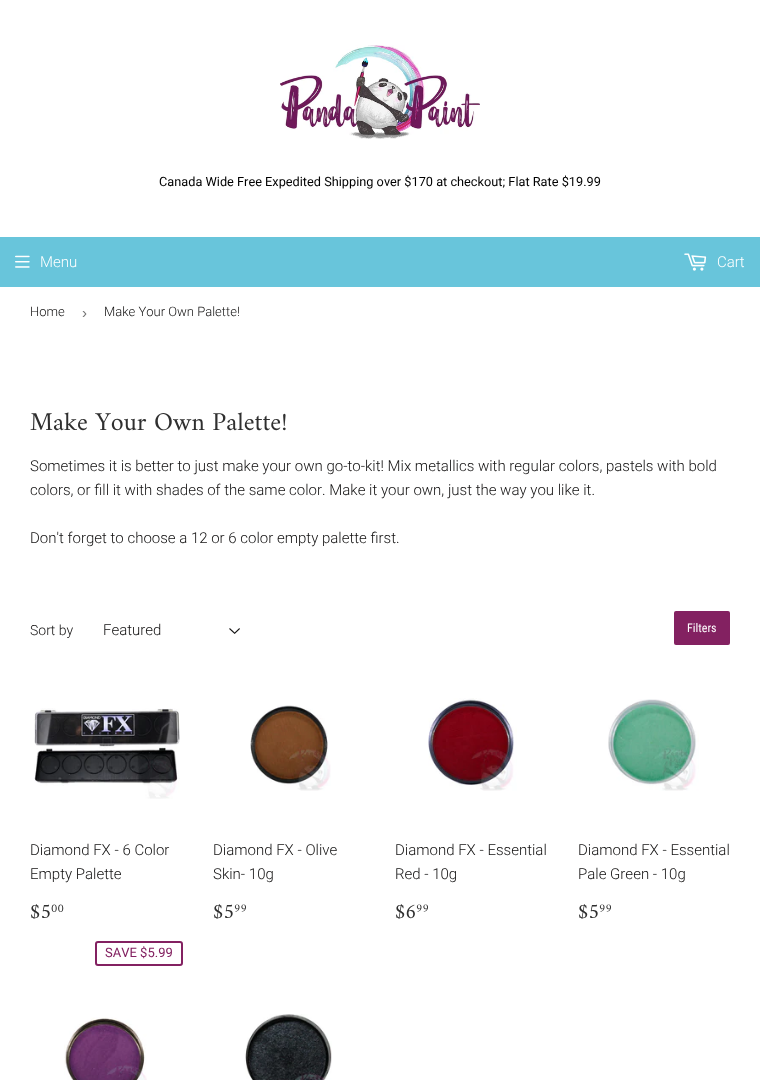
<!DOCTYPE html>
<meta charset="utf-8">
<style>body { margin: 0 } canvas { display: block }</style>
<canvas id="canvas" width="760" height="1080"></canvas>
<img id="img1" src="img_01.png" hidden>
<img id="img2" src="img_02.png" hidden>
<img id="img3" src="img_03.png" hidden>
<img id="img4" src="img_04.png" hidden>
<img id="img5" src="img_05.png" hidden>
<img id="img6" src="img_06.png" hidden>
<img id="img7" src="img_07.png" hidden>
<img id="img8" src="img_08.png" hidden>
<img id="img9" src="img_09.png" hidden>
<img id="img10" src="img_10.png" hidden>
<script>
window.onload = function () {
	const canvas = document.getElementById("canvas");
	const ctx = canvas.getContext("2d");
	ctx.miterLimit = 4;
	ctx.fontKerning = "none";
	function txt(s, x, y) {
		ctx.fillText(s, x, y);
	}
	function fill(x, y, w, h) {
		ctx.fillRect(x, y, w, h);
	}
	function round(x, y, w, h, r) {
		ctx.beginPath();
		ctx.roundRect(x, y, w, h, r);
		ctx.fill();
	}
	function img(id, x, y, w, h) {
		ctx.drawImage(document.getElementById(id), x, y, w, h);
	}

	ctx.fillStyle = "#FFFFFF";
	fill(0, 0, 760, 1080);
	img("img1", 280, 45, 200, 94);
	ctx.fillStyle = "#68C5DB";
	fill(0, 237, 760, 50);
	img("img2", 15, 255, 15, 13);
	img("img3", 684, 253, 23, 18);
	img("img4", 229, 628, 11, 6);
	ctx.fillStyle = "#832161";
	round(674, 611, 56, 34, 2);
	img("img5", 34, 708, 146, 91);
	ctx.beginPath();
	ctx.roundRect(96, 942, 86, 23, 2);
	ctx.strokeStyle = "#832161";
	ctx.lineWidth = 2;
	ctx.stroke();
	img("img6", 250, 705, 81, 86);
	img("img7", 428, 698, 89, 93);
	img("img8", 608, 699, 91, 92);
	img("img9", 64, 1017, 83, 63);
	img("img10", 244, 1014, 88, 66);
	ctx.font = "12.75px Roboto";
	ctx.fillStyle = "#000000";
	txt("Canada Wide Free Expedited Shipping over $170 at checkout; Flat Rate $19.99", 159, 186);
	ctx.font = "300 15px Roboto";
	ctx.fillStyle = "#FFFFFF";
	txt("Menu", 40, 267);
	txt("Cart", 717, 267);
	ctx.font = "300 13px Roboto";
	ctx.fillStyle = "#121111";
	txt("Home", 30, 316);
	ctx.font = "15px Liberation Sans";
	ctx.fillStyle = "#767676";
	txt("›", 82, 318);
	ctx.font = "300 13px Roboto";
	ctx.fillStyle = "#121111";
	txt("Make Your Own Palette!", 104, 316);
	ctx.font = "26px Amiri";
	ctx.fillStyle = "#2F2F2F";
	txt("Make Your Own Palette!", 30, 430);
	ctx.font = "300 15px Roboto";
	ctx.fillStyle = "#121111";
	txt("Sometimes it is better to just make your own go-to-kit! Mix metallics with regular colors, pastels with bold", 30, 471);
	txt("colors, or fill it with shades of the same color. Make it your own, just the way you like it.", 30, 495);
	txt("Don't forget to choose a 12 or 6 color empty palette first.", 30, 543);
	ctx.font = "300 14px Roboto";
	txt("Sort by", 30, 635);
	ctx.font = "300 15px Roboto";
	txt("Featured", 103, 635);
	ctx.font = "12px Roboto Condensed";
	ctx.fillStyle = "#FFFFFF";
	txt("Filters", 687, 632);
	ctx.font = "300 15px Roboto";
	ctx.fillStyle = "#121111";
	txt("Diamond FX - 6 Color", 30, 855);
	txt("Empty Palette", 30, 879);
	ctx.font = "21px Amiri";
	ctx.fillStyle = "#2F2F2F";
	txt("$5", 30, 918);
	ctx.font = "12px Amiri";
	txt("00", 51, 912);
	ctx.font = "13px Roboto";
	ctx.fillStyle = "#832161";
	txt("SAVE $5.99", 105, 957);
	ctx.font = "300 15px Roboto";
	ctx.fillStyle = "#121111";
	txt("Diamond FX - Olive", 213, 855);
	txt("Skin- 10g", 213, 879);
	ctx.font = "21px Amiri";
	ctx.fillStyle = "#2F2F2F";
	txt("$5", 213, 918);
	ctx.font = "12px Amiri";
	txt("99", 234, 912);
	ctx.font = "300 15px Roboto";
	ctx.fillStyle = "#121111";
	txt("Diamond FX - Essential", 395, 855);
	txt("Red - 10g", 395, 879);
	ctx.font = "21px Amiri";
	ctx.fillStyle = "#2F2F2F";
	txt("$6", 395, 918);
	ctx.font = "12px Amiri";
	txt("99", 416, 912);
	ctx.font = "300 15px Roboto";
	ctx.fillStyle = "#121111";
	txt("Diamond FX - Essential", 578, 855);
	txt("Pale Green - 10g", 578, 879);
	ctx.font = "21px Amiri";
	ctx.fillStyle = "#2F2F2F";
	txt("$5", 578, 918);
	ctx.font = "12px Amiri";
	txt("99", 599, 912);
};
</script>
